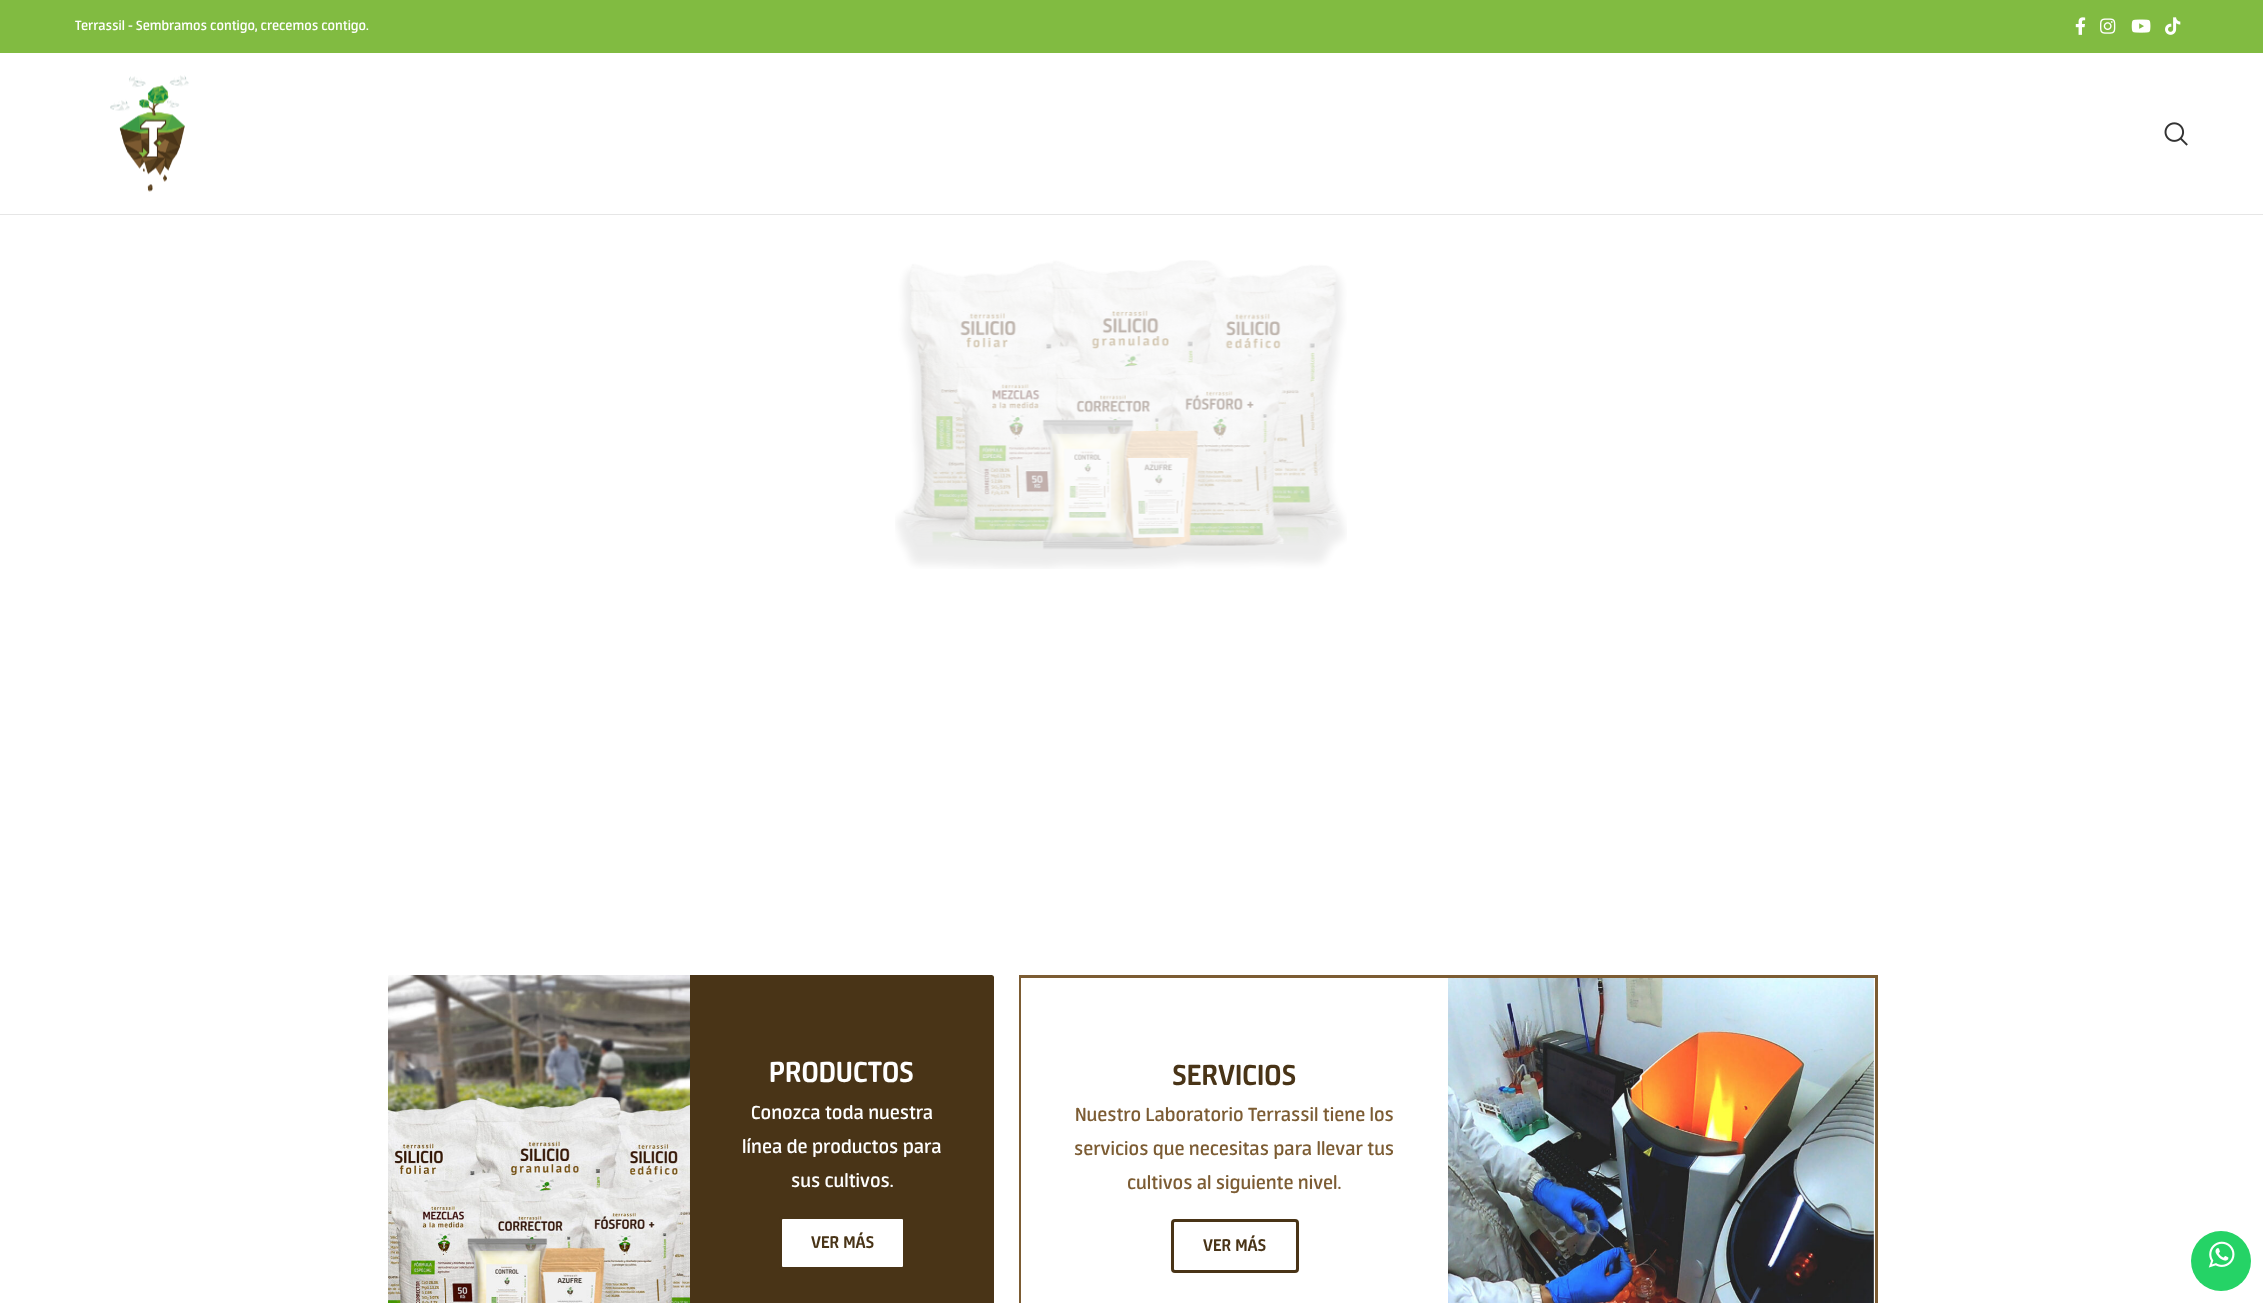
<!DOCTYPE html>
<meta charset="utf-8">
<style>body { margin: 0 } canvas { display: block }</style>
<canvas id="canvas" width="2263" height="1303"></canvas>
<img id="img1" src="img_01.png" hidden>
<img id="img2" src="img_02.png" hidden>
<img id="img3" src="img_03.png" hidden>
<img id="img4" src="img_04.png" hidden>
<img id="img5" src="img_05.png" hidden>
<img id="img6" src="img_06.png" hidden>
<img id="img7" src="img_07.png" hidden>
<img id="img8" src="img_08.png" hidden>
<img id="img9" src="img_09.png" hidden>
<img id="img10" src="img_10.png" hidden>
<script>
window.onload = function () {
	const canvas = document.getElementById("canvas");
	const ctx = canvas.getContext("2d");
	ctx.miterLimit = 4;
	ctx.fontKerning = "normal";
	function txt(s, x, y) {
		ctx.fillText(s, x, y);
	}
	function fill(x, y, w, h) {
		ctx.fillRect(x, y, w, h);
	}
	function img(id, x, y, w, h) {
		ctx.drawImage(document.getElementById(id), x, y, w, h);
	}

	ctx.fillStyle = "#FFFFFF";
	fill(0, 0, 2263, 1303);
	ctx.fillStyle = "#81BB41";
	fill(0, 0, 2263, 53);
	img("img1", 2075, 17, 11, 18);
	img("img2", 2100, 18, 16, 16);
	img("img3", 2131, 19, 20, 14);
	img("img4", 2165, 17, 16, 18);
	ctx.fillStyle = "#E6E6E6";
	fill(0, 214, 2263, 1);
	img("img5", 110, 75, 79, 117);
	img("img6", 2164, 122, 24, 24);
	img("img7", 895, 260, 452, 309);
	img("img8", 388, 975, 302, 328);
	ctx.fillStyle = "#493417";
	ctx.beginPath();
	ctx.moveTo(690, 975);
	ctx.lineTo(991.5, 975);
	ctx.bezierCurveTo(993, 975, 994, 976, 994, 977.5);
	ctx.lineTo(994, 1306);
	ctx.lineTo(690, 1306);
	ctx.closePath();
	ctx.fill();
	ctx.fillStyle = "#FFFFFF";
	ctx.beginPath();
	ctx.roundRect(780.5, 1217.5, 124, 51, 2.5);
	ctx.fill();
	ctx.strokeStyle = "#493417";
	ctx.lineWidth = 3;
	ctx.stroke();
	ctx.strokeStyle = "#7C5C33";
	ctx.strokeRect(1020.5, 976.5, 856, 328);
	fill(1021, 978, 1, 325);
	ctx.beginPath();
	ctx.roundRect(1172.5, 1220.5, 125, 51, 2.5);
	ctx.strokeStyle = "#493417";
	ctx.stroke();
	img("img9", 1448, 978, 426, 325);
	ctx.fillStyle = "#25D366";
	ctx.beginPath();
	ctx.arc(2221, 1261, 30, 0, Math.PI * 2);
	ctx.fill();
	img("img10", 2208, 1241, 27, 27);
	ctx.font = "600 15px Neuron";
	ctx.fillStyle = "#FFFFFF";
	txt("Terrassil - Sembramos contigo, crecemos contigo.", 75, 30);
	ctx.font = "bold 32.5px Neuron";
	txt("PRODUCTOS", 769, 1082);
	ctx.font = "600 21.25px Neuron";
	txt("Conozca toda nuestra", 751, 1119);
	txt("línea de productos para", 742, 1153);
	txt("sus cultivos.", 791, 1187);
	ctx.font = "bold 19px Neuron";
	ctx.fillStyle = "#493417";
	txt("VER MÁS", 811, 1248);
	ctx.font = "bold 32.5px Neuron";
	txt("SERVICIOS", 1172, 1085);
	ctx.font = "600 21.25px Neuron";
	ctx.fillStyle = "#7C5C33";
	txt("Nuestro Laboratorio Terrassil tiene los", 1075, 1121);
	txt("servicios que necesitas para llevar tus", 1074, 1155);
	txt("cultivos al siguiente nivel.", 1127, 1189);
	ctx.font = "bold 19px Neuron";
	ctx.fillStyle = "#493417";
	txt("VER MÁS", 1203, 1251);
};
</script>
